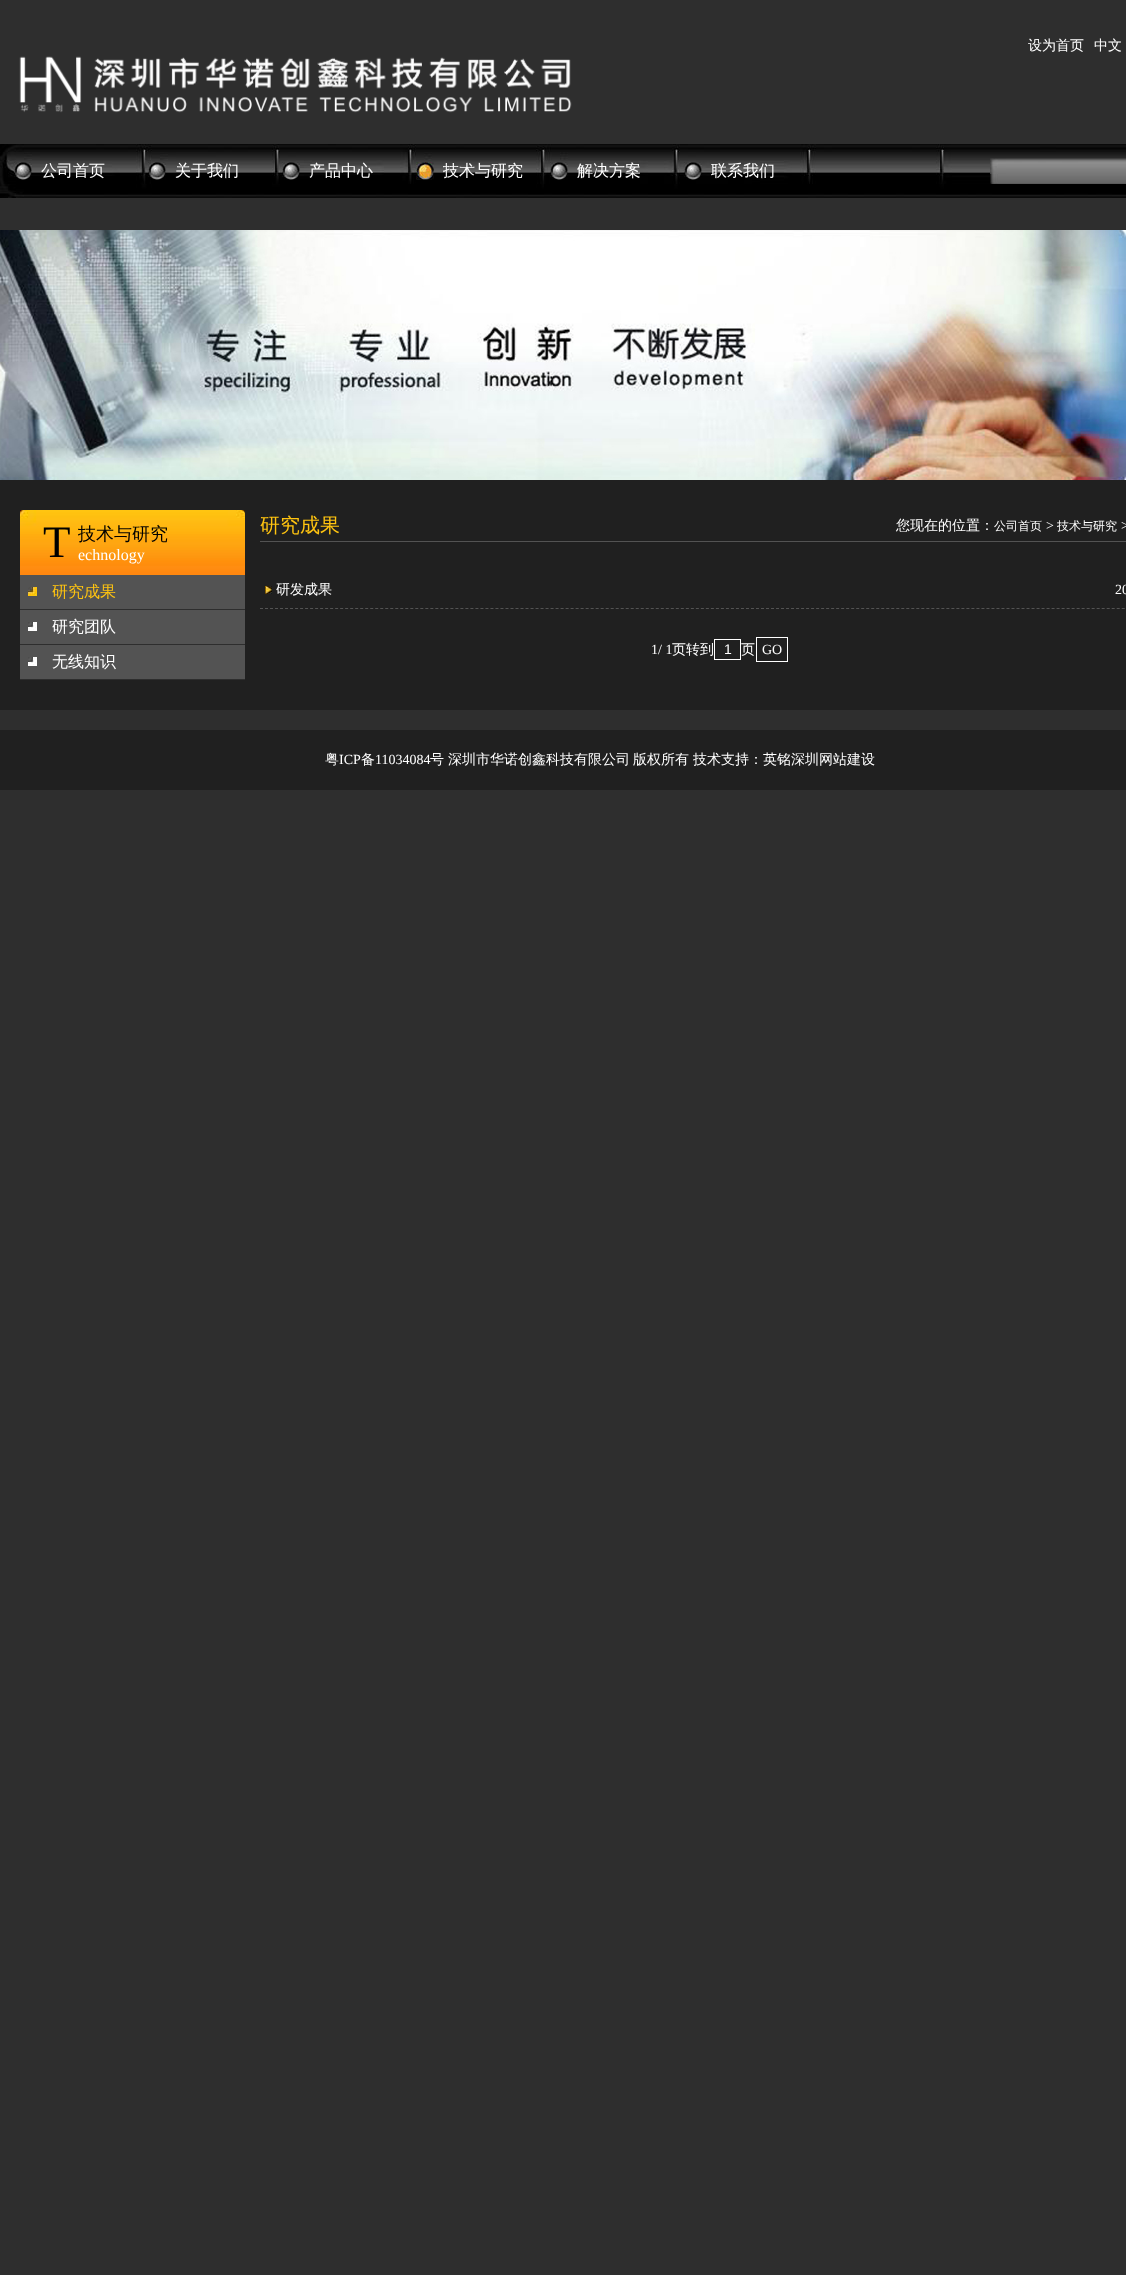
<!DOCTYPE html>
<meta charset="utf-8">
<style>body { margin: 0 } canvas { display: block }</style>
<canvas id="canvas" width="1126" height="2275"></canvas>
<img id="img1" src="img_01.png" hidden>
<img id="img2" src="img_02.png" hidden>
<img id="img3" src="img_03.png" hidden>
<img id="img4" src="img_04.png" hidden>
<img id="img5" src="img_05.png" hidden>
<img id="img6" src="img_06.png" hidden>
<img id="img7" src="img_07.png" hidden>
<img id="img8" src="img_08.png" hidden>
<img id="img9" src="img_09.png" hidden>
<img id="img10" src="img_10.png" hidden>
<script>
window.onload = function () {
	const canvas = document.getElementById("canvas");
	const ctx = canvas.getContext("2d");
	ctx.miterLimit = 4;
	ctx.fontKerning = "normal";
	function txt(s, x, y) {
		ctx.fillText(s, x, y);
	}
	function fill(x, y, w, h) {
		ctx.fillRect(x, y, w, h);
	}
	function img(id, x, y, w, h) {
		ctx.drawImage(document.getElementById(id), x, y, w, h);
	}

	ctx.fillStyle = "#2E2E2E";
	fill(0, 0, 1126, 2275);
	img("img1", 19, 56, 553, 57);
	img("img2", 0, 144, 1126, 54);
	img("img3", 14, 162, 18, 18);
	img("img3", 148, 162, 18, 18);
	img("img3", 282, 162, 18, 18);
	img("img4", 416, 162, 18, 18);
	img("img3", 550, 162, 18, 18);
	img("img3", 684, 162, 18, 18);
	img("img5", 990, 158, 136, 26);
	img("img6", 0, 230, 1126, 250);
	ctx.fillStyle = "#202020";
	fill(0, 480, 1126, 230);
	img("img7", 20, 510, 225, 65);
	ctx.fillStyle = "#2E2E2E";
	fill(20, 609, 225, 1);
	ctx.fillStyle = "#535353";
	fill(20, 575, 225, 34);
	img("img8", 28, 587, 9, 9);
	ctx.fillStyle = "#2E2E2E";
	fill(20, 644, 225, 1);
	ctx.fillStyle = "#535353";
	fill(20, 610, 225, 34);
	img("img9", 28, 622, 9, 9);
	ctx.fillStyle = "#2E2E2E";
	fill(20, 679, 225, 1);
	ctx.fillStyle = "#535353";
	fill(20, 645, 225, 34);
	img("img9", 28, 657, 9, 9);
	fill(260, 541, 866, 1);
	img("img10", 265, 586, 7, 8);
	ctx.beginPath();
	ctx.moveTo(260, 608.5);
	ctx.lineTo(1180, 608.5);
	ctx.strokeStyle = "#535353";
	ctx.setLineDash([3, 2.01]);
	ctx.stroke();
	ctx.strokeStyle = "#FFFFFF";
	ctx.setLineDash([]);
	ctx.strokeRect(714.5, 639.5, 26, 20);
	ctx.strokeRect(756.5, 637.5, 31, 24);
	ctx.fillStyle = "#202020";
	fill(0, 730, 1126, 60);
	ctx.font = "500 14px WenQuanYi Zen Hei";
	ctx.fillStyle = "#FFFFFF";
	txt("设为首页", 1028, 50);
	txt("中文", 1094, 50);
	ctx.font = "500 16px WenQuanYi Zen Hei";
	txt("公司首页", 41, 176);
	txt("关于我们", 175, 176);
	txt("产品中心", 309, 176);
	txt("技术与研究", 443, 176);
	txt("解决方案", 577, 176);
	txt("联系我们", 711, 176);
	ctx.font = "45px Liberation Serif";
	ctx.fillStyle = "#000000";
	txt("T", 43, 557);
	ctx.font = "500 18px WenQuanYi Zen Hei";
	txt("技术与研究", 78, 540);
	ctx.font = "16px Liberation Serif";
	ctx.fillStyle = "#FFFFFF";
	txt("echnology", 78, 560);
	ctx.font = "500 16px WenQuanYi Zen Hei";
	ctx.fillStyle = "#FFC410";
	txt("研究成果", 52, 597);
	ctx.fillStyle = "#FFFFFF";
	txt("研究团队", 52, 632);
	txt("无线知识", 52, 667);
	ctx.font = "500 20px WenQuanYi Zen Hei";
	ctx.fillStyle = "#FFC410";
	txt("研究成果", 260, 532);
	ctx.font = "500 14px WenQuanYi Zen Hei";
	ctx.fillStyle = "#FFFFFF";
	txt("您现在的位置：", 896, 530);
	ctx.font = "500 12px WenQuanYi Zen Hei";
	txt("公司首页", 994, 530);
	ctx.font = "14px Liberation Serif";
	txt(">", 1046, 530);
	ctx.font = "500 12px WenQuanYi Zen Hei";
	txt("技术与研究", 1057, 530);
	ctx.font = "14px Liberation Serif";
	txt(">", 1121, 530);
	ctx.font = "500 14px WenQuanYi Zen Hei";
	txt("研发成果", 276, 594);
	ctx.font = "14px Liberation Serif";
	txt("20", 1115, 594);
	txt("1/ 1", 651, 654);
	ctx.font = "500 14px WenQuanYi Zen Hei";
	txt("页转到", 672, 654);
	ctx.font = "14px Liberation Sans";
	txt("1", 724, 654);
	ctx.font = "500 14px WenQuanYi Zen Hei";
	txt("页", 741, 654);
	ctx.font = "14px Liberation Serif";
	txt("GO", 762, 654);
	ctx.font = "500 14px WenQuanYi Zen Hei";
	txt("粤", 325, 764);
	ctx.font = "14px Liberation Serif";
	txt("ICP", 339, 764);
	ctx.font = "500 14px WenQuanYi Zen Hei";
	txt("备", 361, 764);
	ctx.font = "14px Liberation Serif";
	txt("11034084", 375, 764);
	ctx.font = "500 14px WenQuanYi Zen Hei";
	txt("号", 430, 764);
	txt("深圳市华诺创鑫科技有限公司", 448, 764);
	txt("版权所有", 633, 764);
	txt("技术支持：英铭深圳网站建设", 693, 764);
};
</script>
